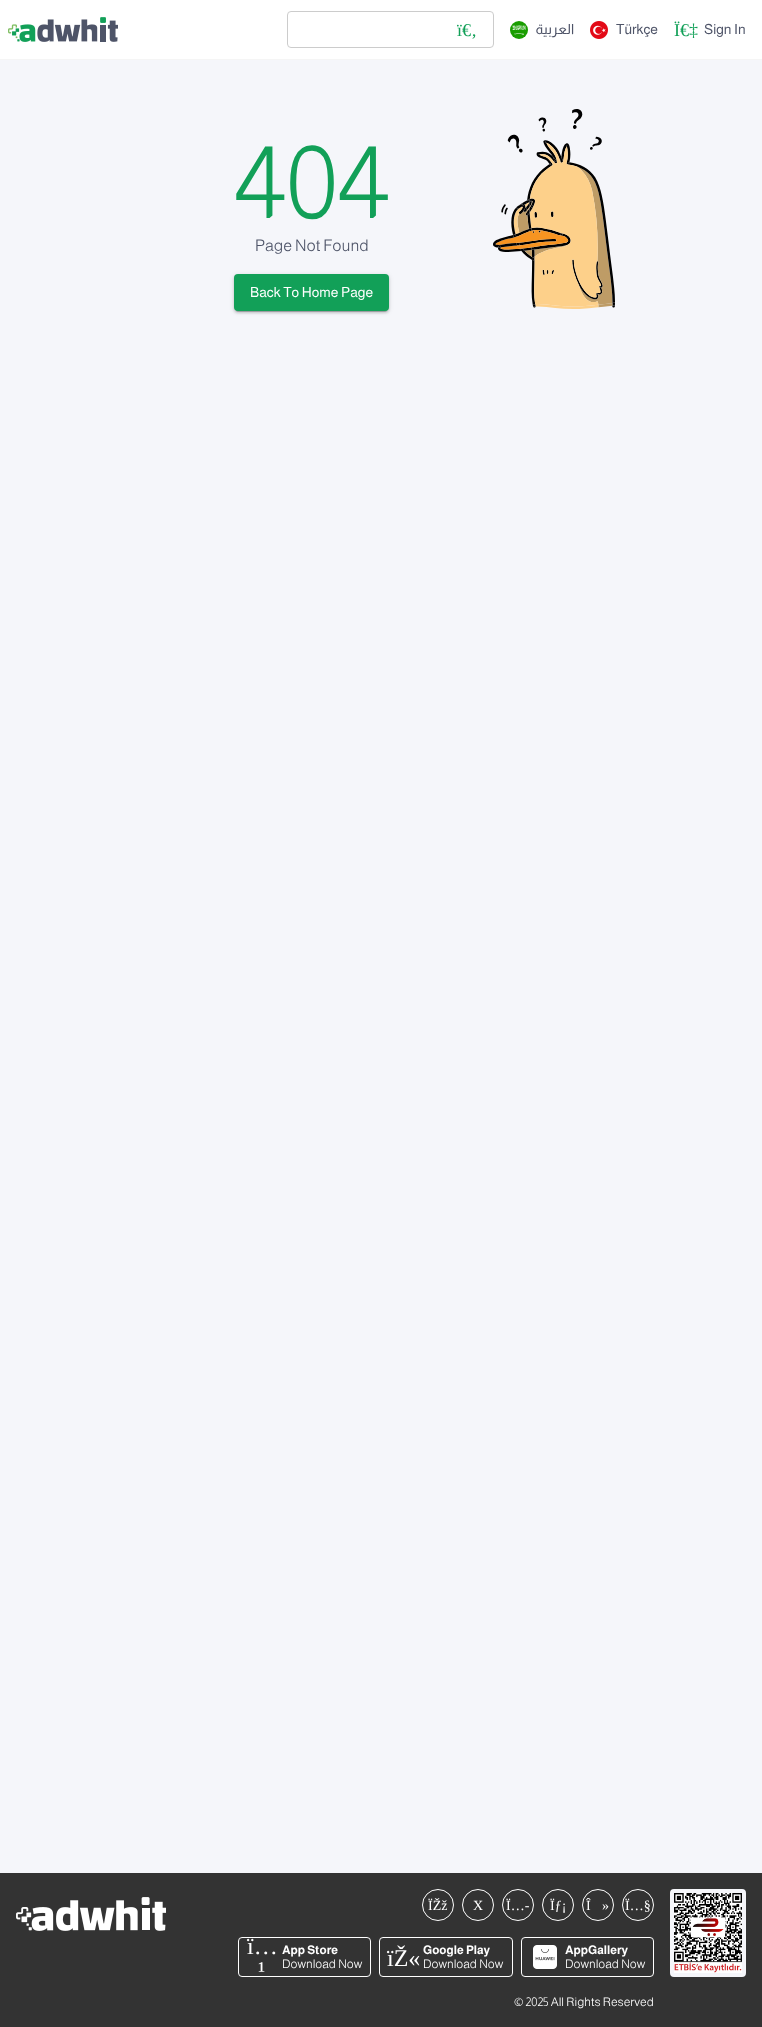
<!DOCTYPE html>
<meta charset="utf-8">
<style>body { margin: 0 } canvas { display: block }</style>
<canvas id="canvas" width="762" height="2027"></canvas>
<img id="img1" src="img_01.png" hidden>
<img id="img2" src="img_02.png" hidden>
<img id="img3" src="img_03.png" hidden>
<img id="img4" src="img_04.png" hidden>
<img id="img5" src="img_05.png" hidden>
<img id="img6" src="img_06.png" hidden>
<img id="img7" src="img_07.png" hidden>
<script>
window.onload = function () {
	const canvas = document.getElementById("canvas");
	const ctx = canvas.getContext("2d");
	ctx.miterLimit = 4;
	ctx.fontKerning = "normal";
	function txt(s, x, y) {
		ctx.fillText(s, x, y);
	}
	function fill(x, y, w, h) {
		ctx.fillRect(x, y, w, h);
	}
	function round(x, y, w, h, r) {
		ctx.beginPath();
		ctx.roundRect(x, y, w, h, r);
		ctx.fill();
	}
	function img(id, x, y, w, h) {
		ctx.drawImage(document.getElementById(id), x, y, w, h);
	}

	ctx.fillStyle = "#F5F6FA";
	fill(0, 0, 762, 2027);
	ctx.fillStyle = "#FFFFFF";
	fill(0, 0, 762, 59);
	ctx.fillStyle = "#F5F5F5";
	fill(0, 59, 762, 1);
	img("img1", 8, 17, 110, 25);
	ctx.beginPath();
	ctx.roundRect(287.5, 11.5, 206, 36, 3.5);
	ctx.strokeStyle = "#CCCCCC";
	ctx.stroke();
	img("img2", 510, 21, 18, 18);
	img("img3", 590, 21, 18, 18);
	ctx.fillStyle = "rgba(0, 0, 0, 0.12)";
	ctx.filter = "blur(2.5px)";
	ctx.beginPath();
	ctx.roundRect(234, 275, 155, 37, 4);
	ctx.fill();
	ctx.filter = "none";
	ctx.fillStyle = "rgba(0, 0, 0, 0.14)";
	ctx.filter = "blur(1px)";
	ctx.beginPath();
	ctx.roundRect(234, 276, 155, 37, 4);
	ctx.fill();
	ctx.filter = "none";
	ctx.fillStyle = "rgba(0, 0, 0, 0.2)";
	ctx.filter = "blur(0.5px)";
	ctx.beginPath();
	ctx.roundRect(236, 279, 151, 33, 2);
	ctx.fill();
	ctx.filter = "none";
	ctx.fillStyle = "#12A058";
	round(234, 274, 155, 37, 4);
	img("img4", 493, 109, 122, 200);
	ctx.fillStyle = "#333333";
	fill(0, 1873, 762, 154);
	img("img5", 16, 1897, 150, 34);
	ctx.beginPath();
	ctx.arc(438, 1905, 15.5, 0, Math.PI * 2);
	ctx.strokeStyle = "#FFFFFF";
	ctx.stroke();
	ctx.beginPath();
	ctx.arc(478, 1905, 15.5, 0, Math.PI * 2);
	ctx.stroke();
	ctx.beginPath();
	ctx.arc(518, 1905, 15.5, 0, Math.PI * 2);
	ctx.stroke();
	ctx.beginPath();
	ctx.arc(558, 1905, 15.5, 0, Math.PI * 2);
	ctx.stroke();
	ctx.beginPath();
	ctx.arc(598, 1905, 15.5, 0, Math.PI * 2);
	ctx.stroke();
	ctx.beginPath();
	ctx.arc(638, 1905, 15.5, 0, Math.PI * 2);
	ctx.stroke();
	ctx.beginPath();
	ctx.roundRect(238.5, 1937.5, 132, 39, 3.5);
	ctx.stroke();
	ctx.beginPath();
	ctx.roundRect(379.5, 1937.5, 133, 39, 3.5);
	ctx.stroke();
	ctx.beginPath();
	ctx.roundRect(521.5, 1937.5, 132, 39, 3.5);
	ctx.stroke();
	img("img6", 533, 1945, 24, 24);
	ctx.beginPath();
	ctx.roundRect(672, 1891, 72, 84, 2);
	ctx.strokeStyle = "#F5F6FA";
	ctx.lineWidth = 4;
	ctx.stroke();
	img("img7", 674, 1893, 68, 80);
	ctx.font = "18px Liberation Serif";
	ctx.fillStyle = "#12A058";
	txt("ï€‚", 457, 36);
	ctx.direction = "rtl";
	ctx.font = "14px Almarai";
	ctx.fillStyle = "#4E5468";
	txt("العربية", 574, 34);
	ctx.direction = "ltr";
	txt("Türkçe", 616, 34);
	ctx.font = "18px Liberation Serif";
	ctx.fillStyle = "#12A058";
	txt("Ï€‡", 674, 36);
	ctx.font = "14px Almarai";
	ctx.fillStyle = "#4E5468";
	txt("Sign In", 704, 34);
	ctx.font = "300 100px Almarai";
	ctx.fillStyle = "#12A058";
	txt("404", 234, 218);
	ctx.font = "300 16px Almarai";
	ctx.fillStyle = "#4E5468";
	txt("Page Not Found", 255, 251);
	ctx.font = "14px Almarai";
	ctx.fillStyle = "#FFFFFF";
	txt("Back To Home Page", 250, 297);
	ctx.font = "14px Liberation Serif";
	txt("ÏŽž", 428, 1910);
	txt("X", 473, 1910);
	txt("Ï…-", 506, 1910);
	txt("Ïƒ¡", 550, 1910);
	txt("Î", 586, 1910);
	txt("»", 602, 1910);
	txt("Ï…§", 625, 1910);
	ctx.font = "24px Liberation Serif";
	txt("ï…", 247, 1954);
	txt("¹", 258, 1978);
	ctx.font = "bold 12px Almarai";
	txt("App Store", 282, 1954);
	ctx.font = "300 12px Almarai";
	txt("Download Now", 282, 1968);
	ctx.font = "24px Liberation Serif";
	txt("ïŽ«", 387, 1966);
	ctx.font = "bold 12px Almarai";
	txt("Google Play", 423, 1954);
	ctx.font = "300 12px Almarai";
	txt("Download Now", 423, 1968);
	ctx.font = "bold 12px Almarai";
	txt("AppGallery", 565, 1954);
	ctx.font = "300 12px Almarai";
	txt("Download Now", 565, 1968);
	txt("© 2025 All Rights Reserved", 514, 2006);
};
</script>
